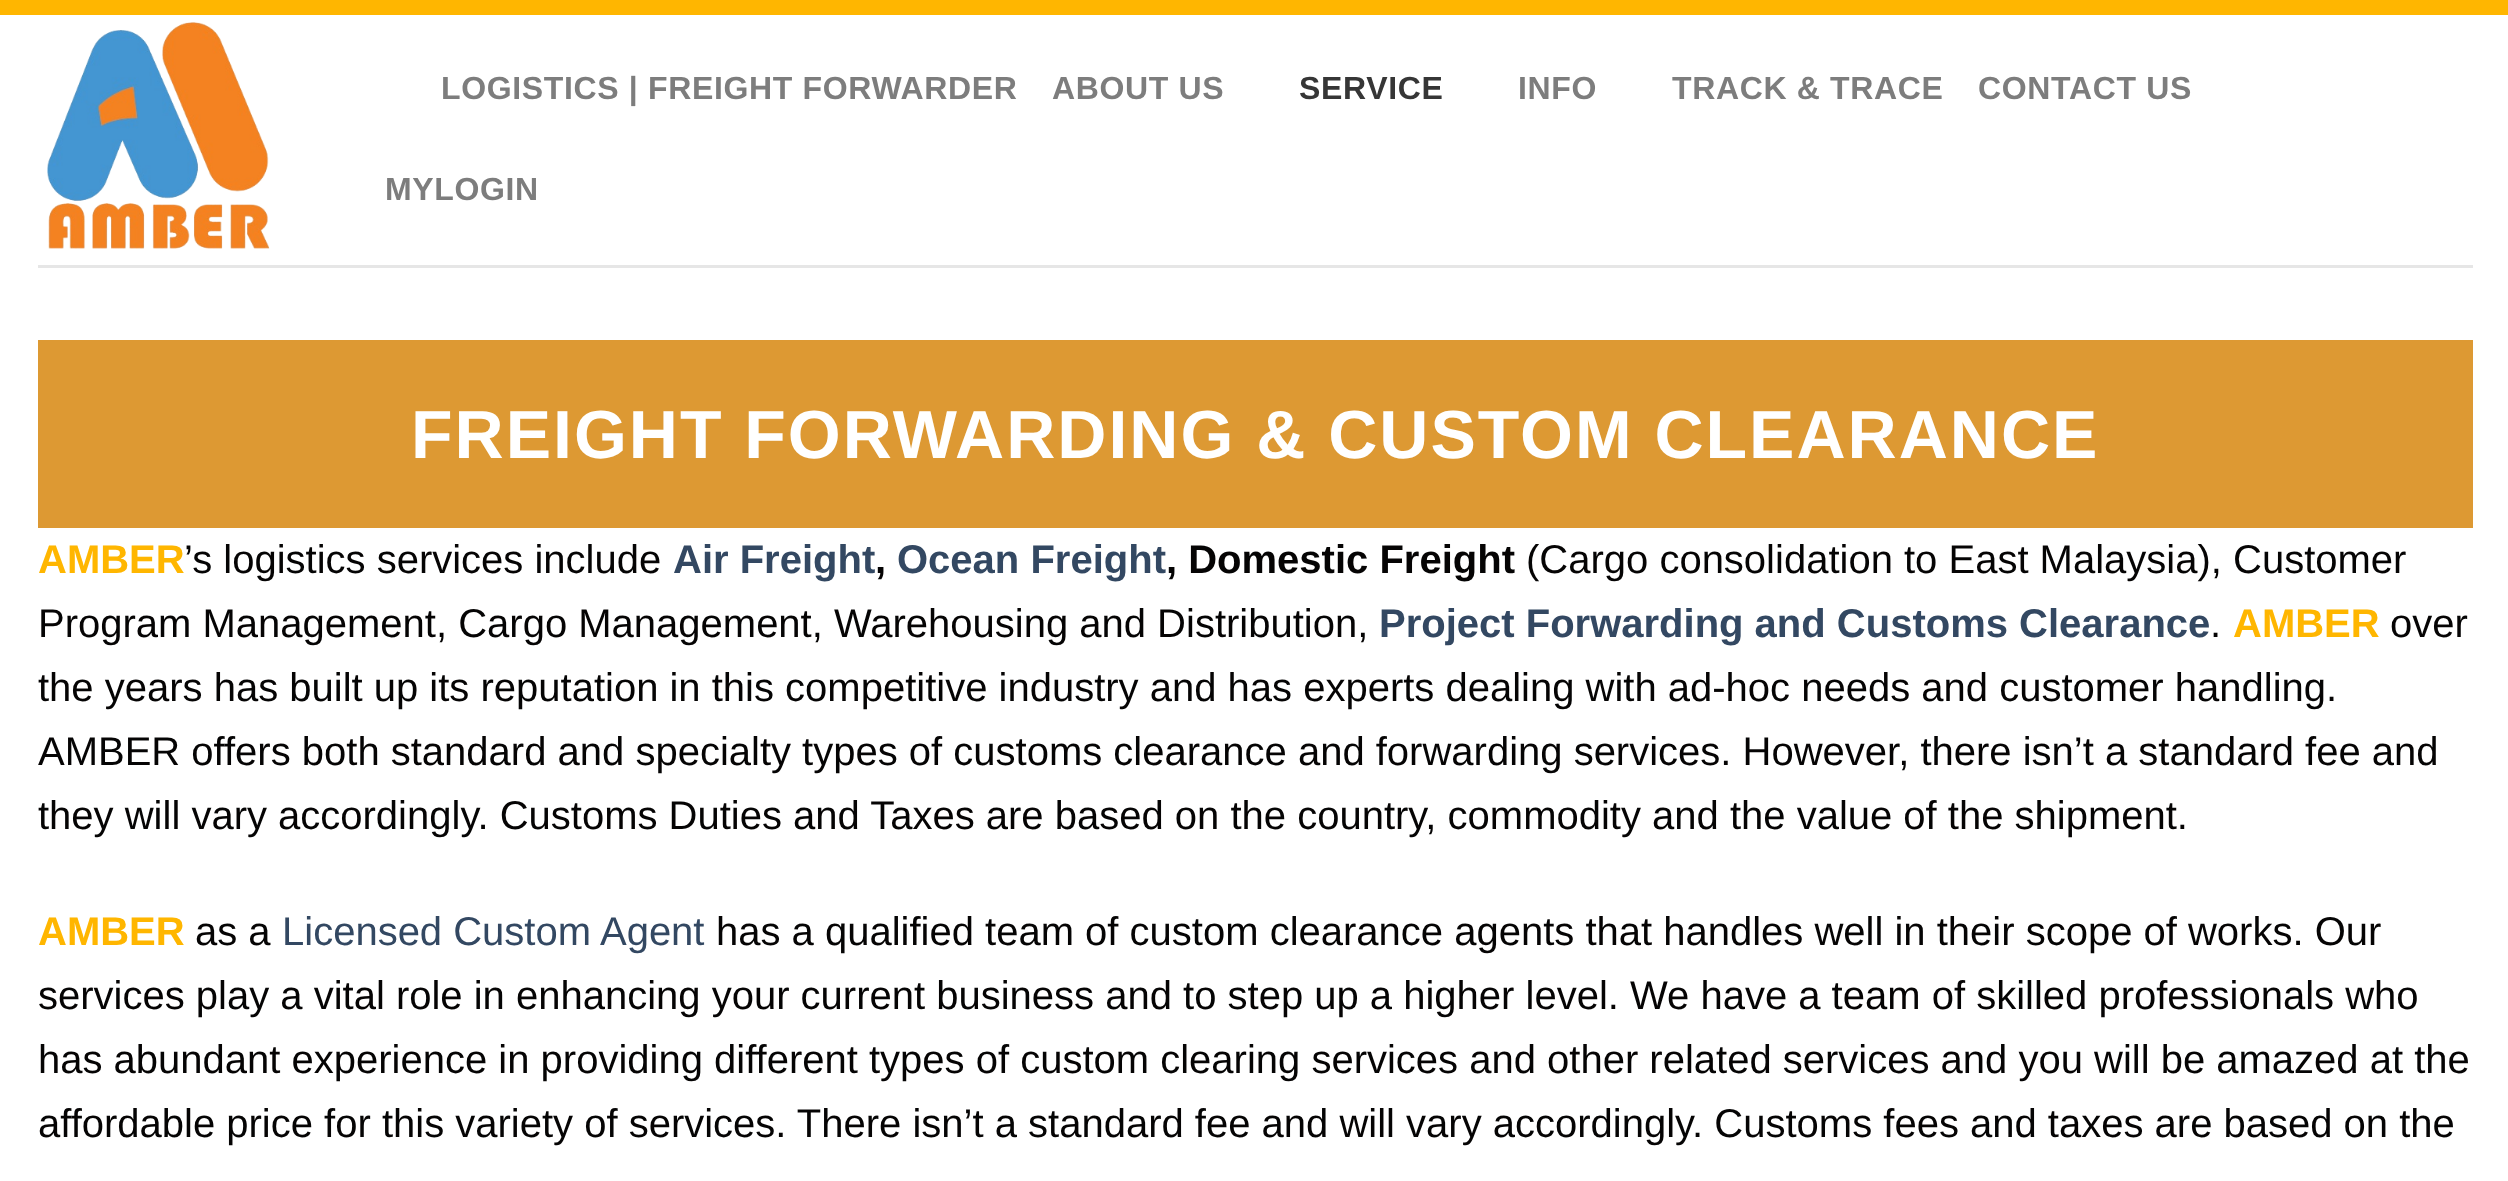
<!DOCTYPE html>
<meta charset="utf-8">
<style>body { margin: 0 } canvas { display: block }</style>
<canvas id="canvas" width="2508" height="1181"></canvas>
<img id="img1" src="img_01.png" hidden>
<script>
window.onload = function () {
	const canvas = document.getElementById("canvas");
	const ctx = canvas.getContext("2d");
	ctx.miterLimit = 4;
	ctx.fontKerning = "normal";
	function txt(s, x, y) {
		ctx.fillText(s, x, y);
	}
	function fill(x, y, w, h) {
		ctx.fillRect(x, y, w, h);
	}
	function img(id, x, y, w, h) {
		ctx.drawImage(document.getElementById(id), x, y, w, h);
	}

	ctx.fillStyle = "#FFFFFF";
	fill(0, 0, 2508, 1181);
	ctx.fillStyle = "#FFB600";
	fill(0, 0, 2508, 15);
	img("img1", 47, 22, 223, 227);
	ctx.fillStyle = "#E6E6E6";
	fill(38, 265, 2435, 3);
	ctx.fillStyle = "#DD9933";
	fill(38, 340, 2435, 188);
	ctx.letterSpacing = "0.65px";
	ctx.font = "bold 32px Liberation Sans";
	ctx.fillStyle = "#7D7D7D";
	txt("LOGISTICS | FREIGHT FORWARDER", 441, 99);
	txt("ABOUT US", 1052, 99);
	ctx.fillStyle = "#363636";
	txt("SERVICE", 1299, 99);
	ctx.fillStyle = "#7D7D7D";
	txt("INFO", 1518, 99);
	txt("TRACK & TRACE", 1672, 99);
	txt("CONTACT US", 1978, 99);
	txt("MYLOGIN", 385, 200);
	ctx.letterSpacing = "2px";
	ctx.font = "bold 68px Liberation Sans";
	ctx.fillStyle = "#FFFFFF";
	txt("FREIGHT FORWARDING & CUSTOM CLEARANCE", 411, 458);
	ctx.letterSpacing = "0px";
	ctx.font = "bold 40px Liberation Sans";
	ctx.fillStyle = "#FFB600";
	txt("AMBER", 38, 573);
	ctx.font = "40px Liberation Sans";
	ctx.fillStyle = "#050404";
	txt("’s logistics services include", 184, 573);
	ctx.font = "bold 40px Liberation Sans";
	ctx.fillStyle = "#334862";
	txt("Air Freight", 673, 573);
	ctx.fillStyle = "#050404";
	txt(",", 875, 573);
	ctx.fillStyle = "#334862";
	txt("Ocean Freight", 897, 573);
	ctx.fillStyle = "#050404";
	txt(", Domestic Freight", 1166, 573);
	ctx.font = "40px Liberation Sans";
	txt("(Cargo consolidation to East Malaysia), Customer", 1526, 573);
	txt("Program Management, Cargo Management, Warehousing and Distribution,", 38, 637);
	ctx.font = "bold 40px Liberation Sans";
	ctx.fillStyle = "#334862";
	txt("Project Forwarding and Customs Clearance", 1379, 637);
	ctx.font = "40px Liberation Sans";
	ctx.fillStyle = "#050404";
	txt(".", 2210, 637);
	ctx.font = "bold 40px Liberation Sans";
	ctx.fillStyle = "#FFB600";
	txt("AMBER", 2233, 637);
	ctx.font = "40px Liberation Sans";
	ctx.fillStyle = "#050404";
	txt("over", 2390, 637);
	txt("the years has built up its reputation in this competitive industry and has experts dealing with ad-hoc needs and customer handling.", 38, 701);
	txt("AMBER offers both standard and specialty types of customs clearance and forwarding services. However, there isn’t a standard fee and", 38, 765);
	txt("they will vary accordingly. Customs Duties and Taxes are based on the country, commodity and the value of the shipment.", 38, 829);
	ctx.font = "bold 40px Liberation Sans";
	ctx.fillStyle = "#FFB600";
	txt("AMBER", 38, 945);
	ctx.font = "40px Liberation Sans";
	ctx.fillStyle = "#050404";
	txt("as a", 195, 945);
	ctx.fillStyle = "#334862";
	txt("Licensed Custom Agent", 282, 945);
	ctx.fillStyle = "#050404";
	txt("has a qualified team of custom clearance agents that handles well in their scope of works. Our", 716, 945);
	txt("services play a vital role in enhancing your current business and to step up a higher level. We have a team of skilled professionals who", 38, 1009);
	txt("has abundant experience in providing different types of custom clearing services and other related services and you will be amazed at the", 38, 1073);
	txt("affordable price for this variety of services. There isn’t a standard fee and will vary accordingly. Customs fees and taxes are based on the", 38, 1137);
};
</script>
